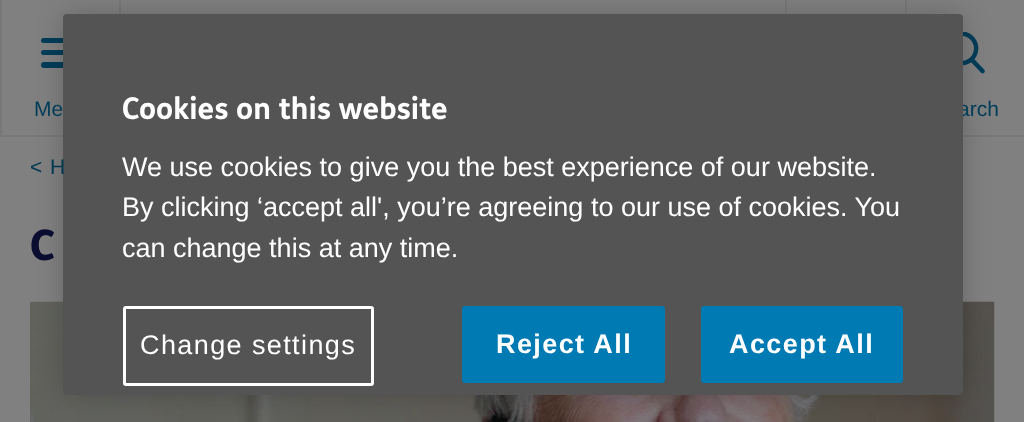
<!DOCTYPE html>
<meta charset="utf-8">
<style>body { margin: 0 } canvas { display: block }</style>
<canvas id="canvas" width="1024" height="422"></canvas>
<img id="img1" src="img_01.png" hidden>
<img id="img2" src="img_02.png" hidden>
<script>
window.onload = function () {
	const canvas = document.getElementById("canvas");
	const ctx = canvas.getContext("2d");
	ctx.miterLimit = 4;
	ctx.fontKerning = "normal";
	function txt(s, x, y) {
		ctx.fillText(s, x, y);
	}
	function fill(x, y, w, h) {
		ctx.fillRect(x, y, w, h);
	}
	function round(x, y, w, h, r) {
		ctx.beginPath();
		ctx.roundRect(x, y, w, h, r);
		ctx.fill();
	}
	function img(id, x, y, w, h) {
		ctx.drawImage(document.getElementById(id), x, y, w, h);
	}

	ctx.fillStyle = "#808080";
	fill(0, 0, 1024, 422);
	ctx.fillStyle = "#787878";
	fill(0, 135, 1024, 2);
	fill(785, 0, 2, 14);
	fill(119, 0, 2, 14);
	ctx.fillStyle = "#003D59";
	round(41, 38, 39, 5, 2.5);
	round(41, 50, 39, 5, 2.5);
	round(41, 62, 39, 6, 3);
	ctx.fillStyle = "#787878";
	fill(905, 0, 2, 14);
	img("img1", 963, 32, 22, 42);
	img("img2", 30, 301, 965, 121);
	ctx.fillStyle = "rgba(0, 0, 0, 0.2)";
	ctx.filter = "blur(13.5px)";
	ctx.beginPath();
	ctx.roundRect(63, 14, 900, 381, 4);
	ctx.fill();
	ctx.filter = "none";
	ctx.fillStyle = "#787878";
	fill(0, 0, 2, 135);
	ctx.font = "21px Liberation Sans";
	ctx.fillStyle = "#003D59";
	txt("Me", 34, 116);
	txt("arch", 958, 116);
	ctx.fillStyle = "#545454";
	round(63, 14, 900, 381, 4);
	ctx.fillStyle = "#007AB2";
	ctx.beginPath();
	ctx.roundRect(702, 307, 200, 75, 2);
	ctx.fill();
	ctx.strokeStyle = "#007AB2";
	ctx.lineWidth = 2;
	ctx.stroke();
	ctx.letterSpacing = "1.4px";
	ctx.font = "bold 27px Liberation Sans";
	ctx.fillStyle = "#FFFFFF";
	txt("Accept All", 729, 353);
	ctx.fillStyle = "#007AB2";
	ctx.beginPath();
	ctx.roundRect(463, 307, 201, 75, 2);
	ctx.fill();
	ctx.stroke();
	ctx.fillStyle = "#FFFFFF";
	txt("Reject All", 496, 353);
	ctx.beginPath();
	ctx.roundRect(124.5, 307.5, 248, 77, 1.5);
	ctx.strokeStyle = "#FFFFFF";
	ctx.lineWidth = 3;
	ctx.stroke();
	ctx.font = "27px Liberation Sans";
	txt("Change settings", 140, 354);
	ctx.letterSpacing = "0px";
	txt("can change this at any time.", 122, 257);
	txt("By clicking ‘accept all', you’re agreeing to our use of cookies. You", 122, 216);
	txt("We use cookies to give you the best experience of our website.", 122, 176);
	ctx.font = "bold 30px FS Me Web";
	txt("Cookies on this website", 122, 119);
	ctx.font = "21px Liberation Sans";
	ctx.fillStyle = "#003751";
	txt("<", 30, 174);
	txt("H", 50, 174);
	ctx.font = "900 42px FS Me Web";
	ctx.fillStyle = "#0A0C30";
	txt("C", 30, 260);
};
</script>
